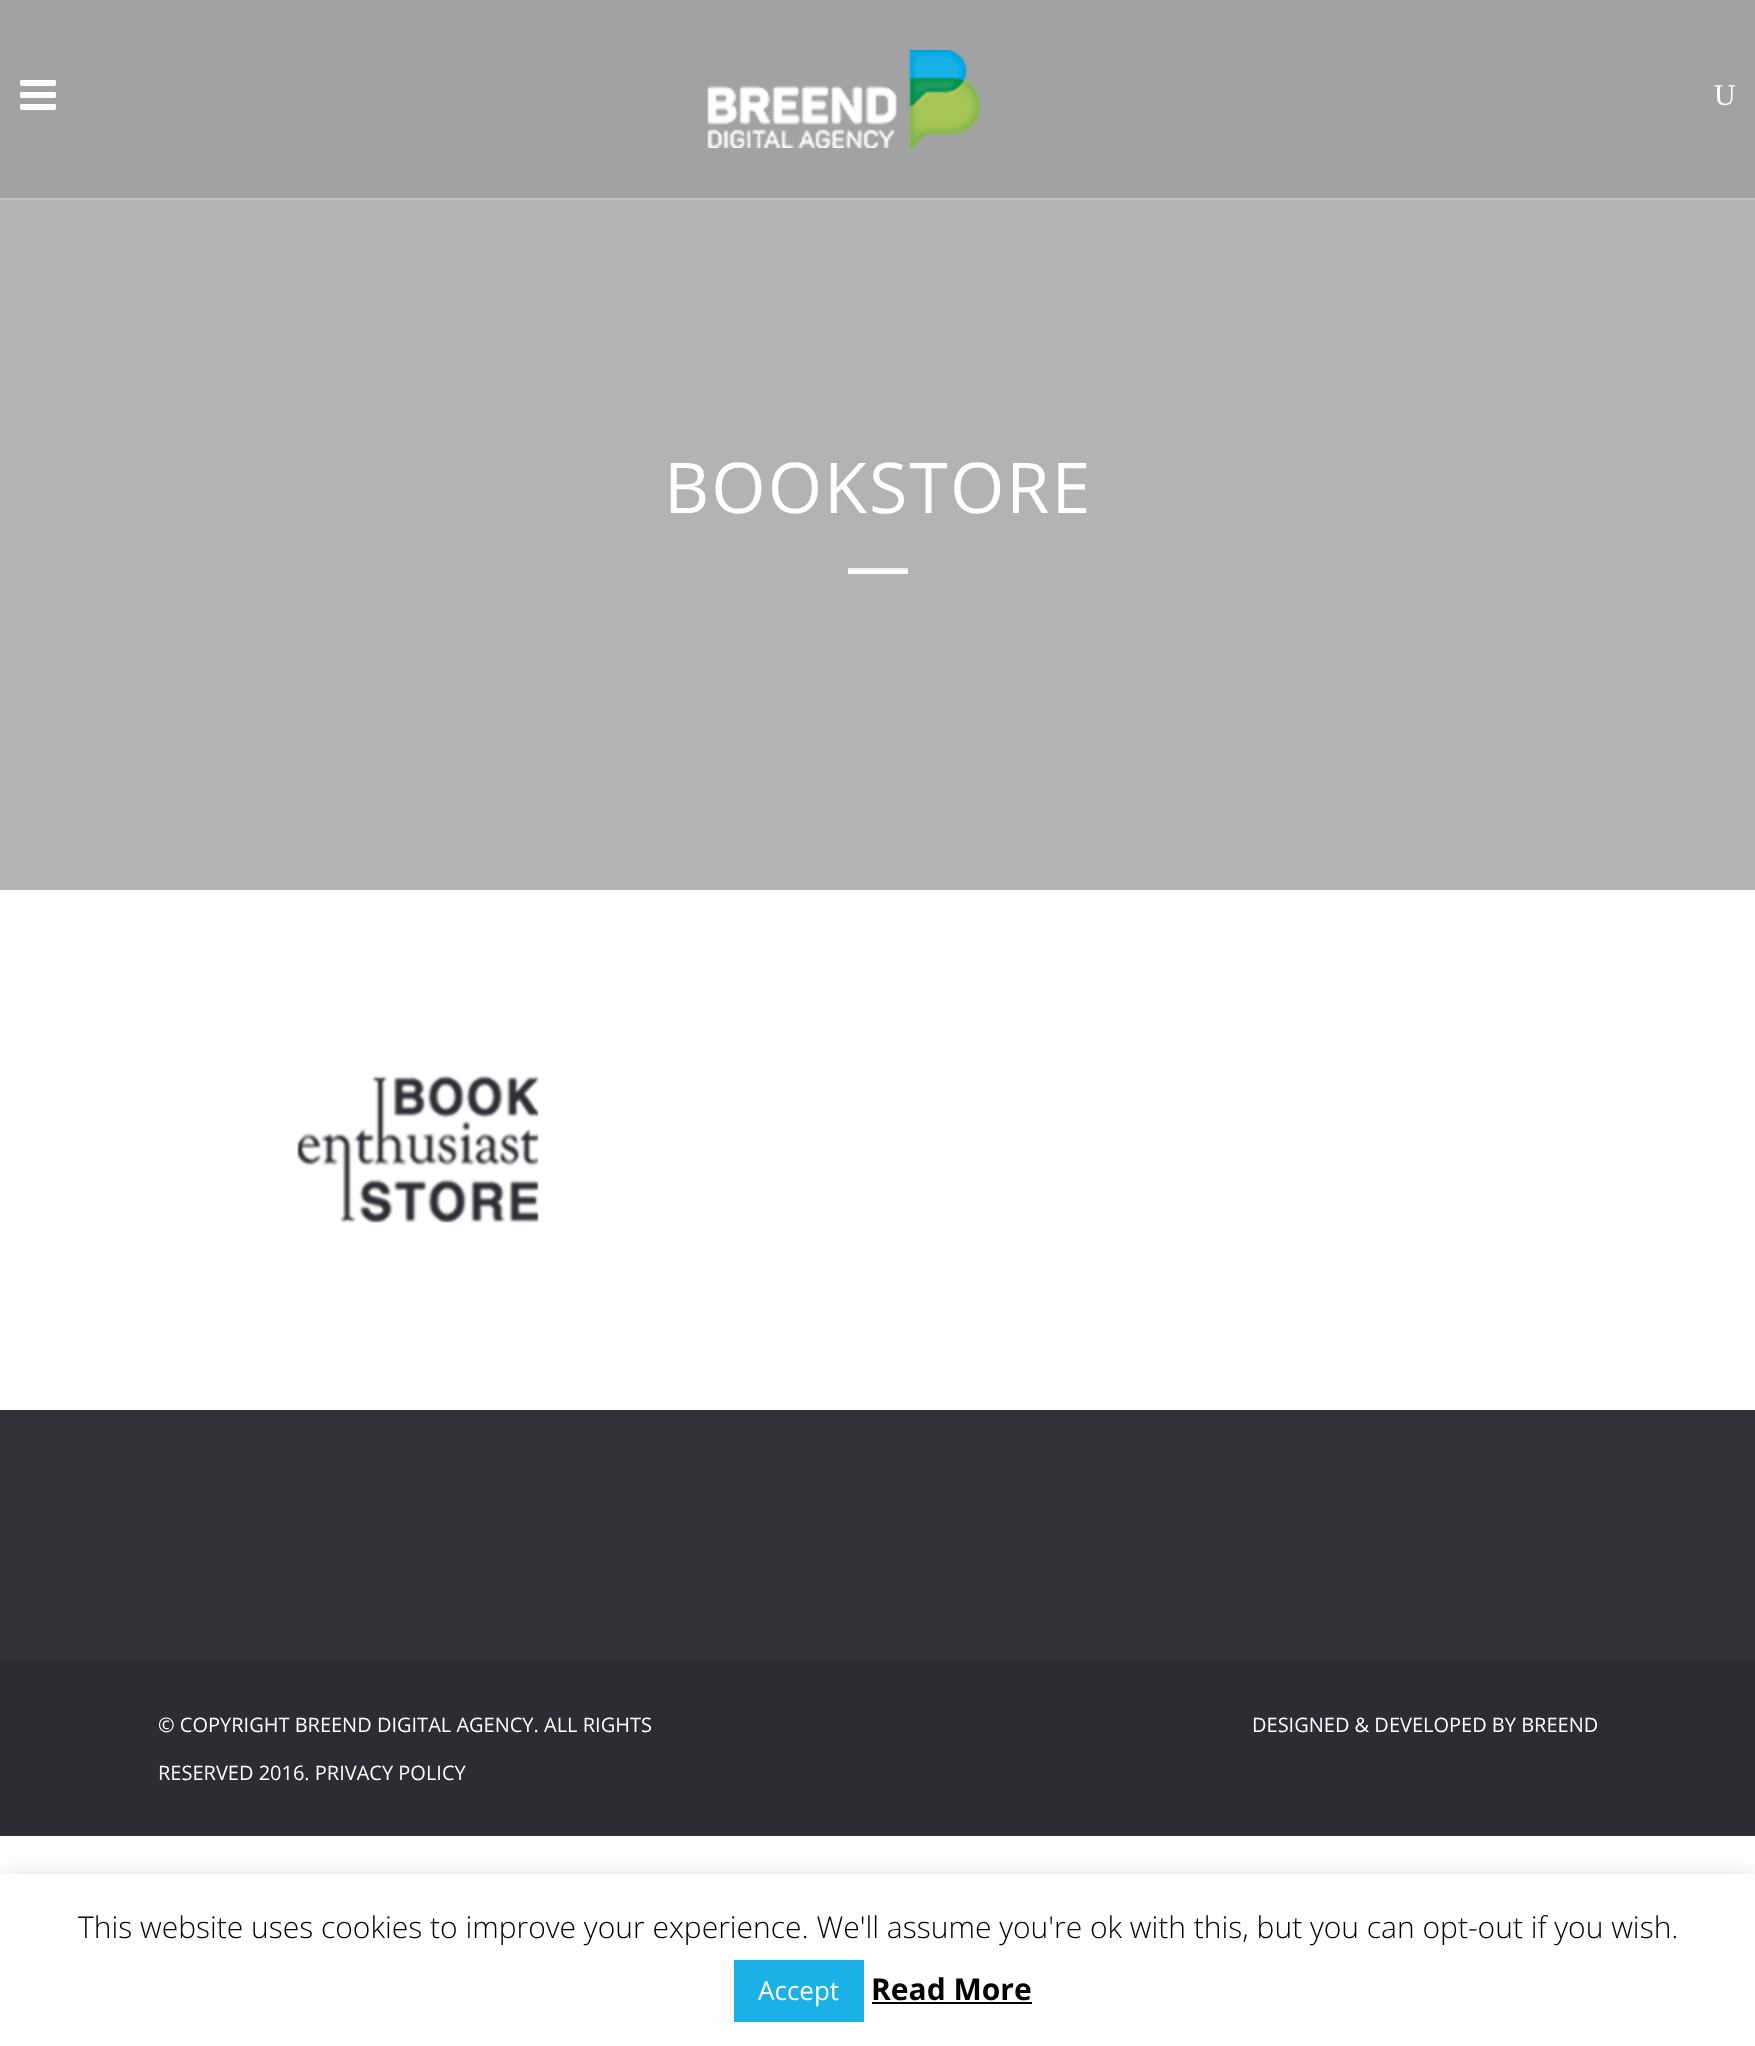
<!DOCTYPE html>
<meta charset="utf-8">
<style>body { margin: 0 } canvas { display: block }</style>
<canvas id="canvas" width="1755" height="2046"></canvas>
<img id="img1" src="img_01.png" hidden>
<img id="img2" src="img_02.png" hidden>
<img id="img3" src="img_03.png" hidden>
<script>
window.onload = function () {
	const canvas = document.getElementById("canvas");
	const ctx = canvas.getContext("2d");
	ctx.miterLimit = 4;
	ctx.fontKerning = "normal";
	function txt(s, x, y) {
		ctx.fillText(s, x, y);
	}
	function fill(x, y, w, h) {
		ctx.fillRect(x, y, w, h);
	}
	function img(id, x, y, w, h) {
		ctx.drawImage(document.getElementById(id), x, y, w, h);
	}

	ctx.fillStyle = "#FFFFFF";
	fill(0, 0, 1755, 2046);
	ctx.fillStyle = "#C2C2C2";
	fill(0, 198, 1755, 2);
	ctx.fillStyle = "#A2A2A2";
	fill(0, 0, 1755, 198);
	img("img1", 20, 80, 36, 30);
	img("img2", 707, 50, 274, 98);
	ctx.fillStyle = "#B3B3B3";
	fill(0, 200, 1755, 690);
	ctx.fillStyle = "#FFFFFF";
	fill(848, 570, 60, 4);
	ctx.fillStyle = "#EEEEEE";
	fill(848, 568, 60, 2);
	img("img3", 297, 1075, 242, 148);
	ctx.fillStyle = "#303237";
	fill(0, 1410, 1755, 250);
	ctx.fillStyle = "#2B2D32";
	fill(0, 1660, 1755, 176);
	ctx.fillStyle = "rgba(172, 171, 171, 0.3)";
	ctx.filter = "blur(10px)";
	ctx.beginPath();
	ctx.rect(0, 1872, 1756, 172);
	ctx.fill();
	ctx.filter = "none";
	ctx.fillStyle = "#FFFFFF";
	fill(0, 1874, 1755, 172);
	ctx.fillStyle = "#1BB1E7";
	fill(734, 1960, 130, 62);
	ctx.fillStyle = "#000000";
	fill(872, 2002, 160, 2);
	ctx.font = "30px Liberation Serif";
	ctx.fillStyle = "#FFFFFF";
	txt("U", 1714, 105);
	ctx.letterSpacing = "2px";
	ctx.font = "70px Open Sans";
	txt("BOOKSTORE", 664, 513);
	ctx.letterSpacing = "0px";
	ctx.font = "20px Open Sans";
	txt("© COPYRIGHT BREEND DIGITAL AGENCY. ALL RIGHTS", 158, 1732);
	txt("RESERVED 2016. PRIVACY POLICY", 158, 1780);
	txt("DESIGNED & DEVELOPED BY BREEND", 1252, 1732);
	ctx.font = "300 30px Open Sans";
	ctx.fillStyle = "#000000";
	txt("This website uses cookies to improve your experience. We'll assume you're ok with this, but you can opt-out if you wish.", 78, 1938);
	ctx.font = "26px Open Sans";
	ctx.fillStyle = "#FFFFFF";
	txt("Accept", 758, 2000);
	ctx.font = "bold 30px Open Sans";
	ctx.fillStyle = "#000000";
	txt("Read More", 871, 2000);
};
</script>
